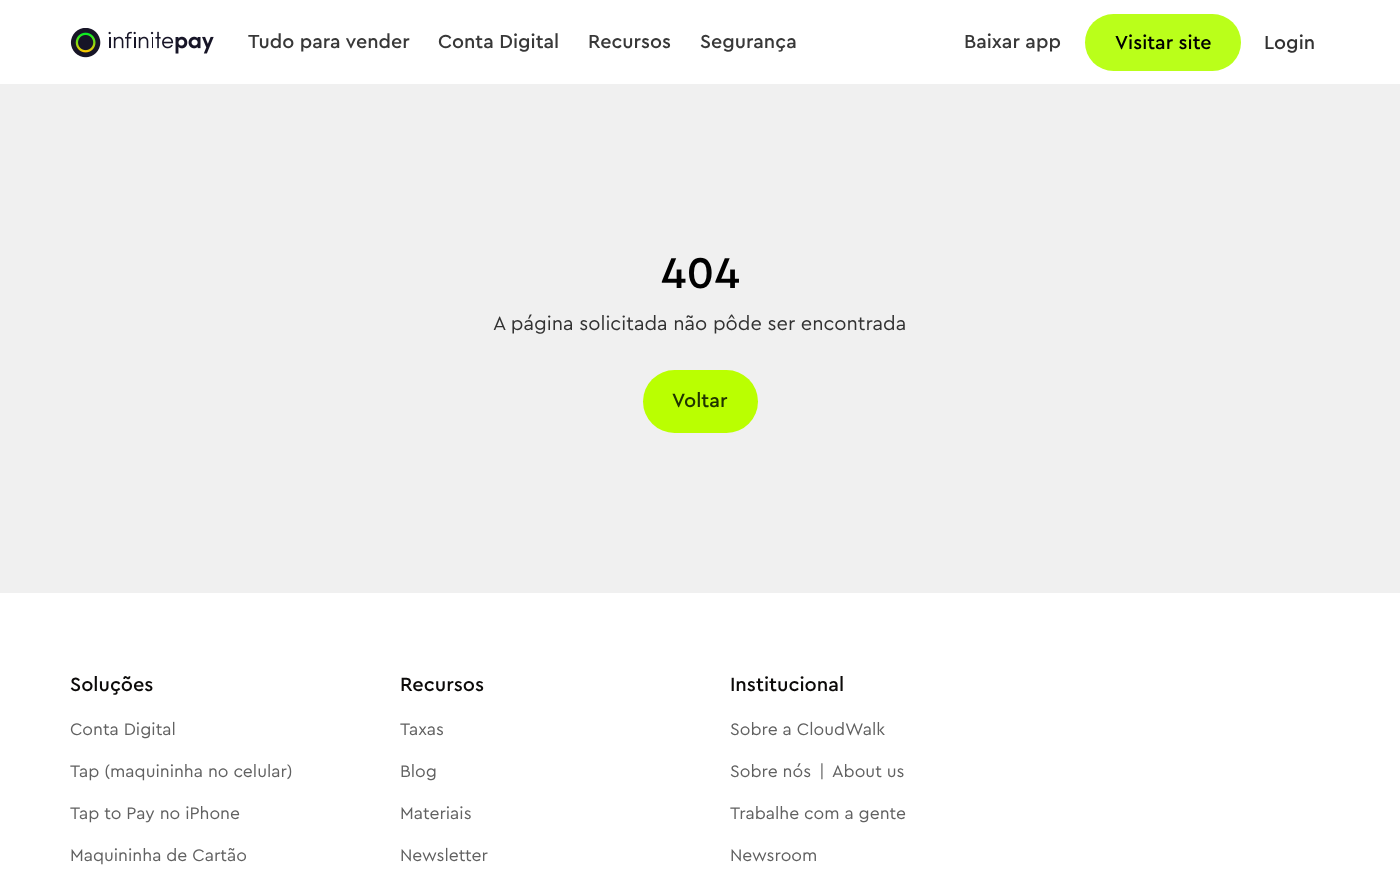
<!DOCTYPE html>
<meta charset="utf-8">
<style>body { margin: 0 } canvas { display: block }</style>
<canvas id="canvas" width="1400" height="872"></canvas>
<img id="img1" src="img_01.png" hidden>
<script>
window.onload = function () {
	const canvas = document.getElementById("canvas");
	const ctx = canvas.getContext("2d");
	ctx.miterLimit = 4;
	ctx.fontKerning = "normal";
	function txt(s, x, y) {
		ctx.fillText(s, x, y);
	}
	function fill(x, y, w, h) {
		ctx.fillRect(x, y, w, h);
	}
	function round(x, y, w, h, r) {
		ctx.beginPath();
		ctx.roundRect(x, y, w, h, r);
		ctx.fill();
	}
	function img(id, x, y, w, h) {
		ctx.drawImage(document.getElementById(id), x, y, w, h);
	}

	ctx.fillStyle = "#F0F0F0";
	fill(0, 0, 1400, 872);
	ctx.fillStyle = "#FFFFFF";
	fill(0, 0, 1400, 84);
	img("img1", 70, 28, 144, 30);
	ctx.fillStyle = "#BAFF1A";
	round(1085, 14, 156, 57, 28.5);
	ctx.fillStyle = "#BAFF01";
	round(643, 370, 115, 63, 31.5);
	ctx.fillStyle = "#FFFFFF";
	fill(0, 593, 1400, 279);
	ctx.font = "500 19.75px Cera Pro";
	ctx.fillStyle = "#383838";
	txt("Tudo para vender", 248, 48);
	txt("Conta Digital", 438, 48);
	txt("Recursos", 588, 48);
	txt("Segurança", 700, 48);
	txt("Baixar app", 964, 48);
	ctx.fillStyle = "#000000";
	txt("Visitar site", 1115, 49);
	ctx.fillStyle = "#323232";
	txt("Login", 1264, 49);
	ctx.font = "500 45px Cera Pro";
	ctx.fillStyle = "#000000";
	txt("404", 661, 288);
	ctx.font = "20px Cera Pro";
	ctx.fillStyle = "#323232";
	txt("A página solicitada não pôde ser encontrada", 493, 330);
	ctx.font = "500 20px Cera Pro";
	ctx.fillStyle = "#203400";
	txt("Voltar", 672, 407);
	ctx.fillStyle = "#0C0A09";
	txt("Soluções", 70, 691);
	ctx.font = "17.5px Cera Pro";
	ctx.fillStyle = "#616161";
	txt("Conta Digital", 70, 735);
	txt("Tap (maquininha no celular)", 70, 777);
	txt("Tap to Pay no iPhone", 70, 819);
	txt("Maquininha de Cartão", 70, 861);
	ctx.font = "500 20px Cera Pro";
	ctx.fillStyle = "#0C0A09";
	txt("Recursos", 400, 691);
	ctx.font = "17.5px Cera Pro";
	ctx.fillStyle = "#616161";
	txt("Taxas", 400, 735);
	txt("Blog", 400, 777);
	txt("Materiais", 400, 819);
	txt("Newsletter", 400, 861);
	ctx.font = "500 20px Cera Pro";
	ctx.fillStyle = "#0C0A09";
	txt("Institucional", 730, 691);
	ctx.font = "17.5px Cera Pro";
	ctx.fillStyle = "#616161";
	txt("Sobre a CloudWalk", 730, 735);
	txt("Sobre nós", 730, 777);
	txt("|", 819, 777);
	txt("About us", 832, 777);
	txt("Trabalhe com a gente", 730, 819);
	txt("Newsroom", 730, 861);
};
</script>
